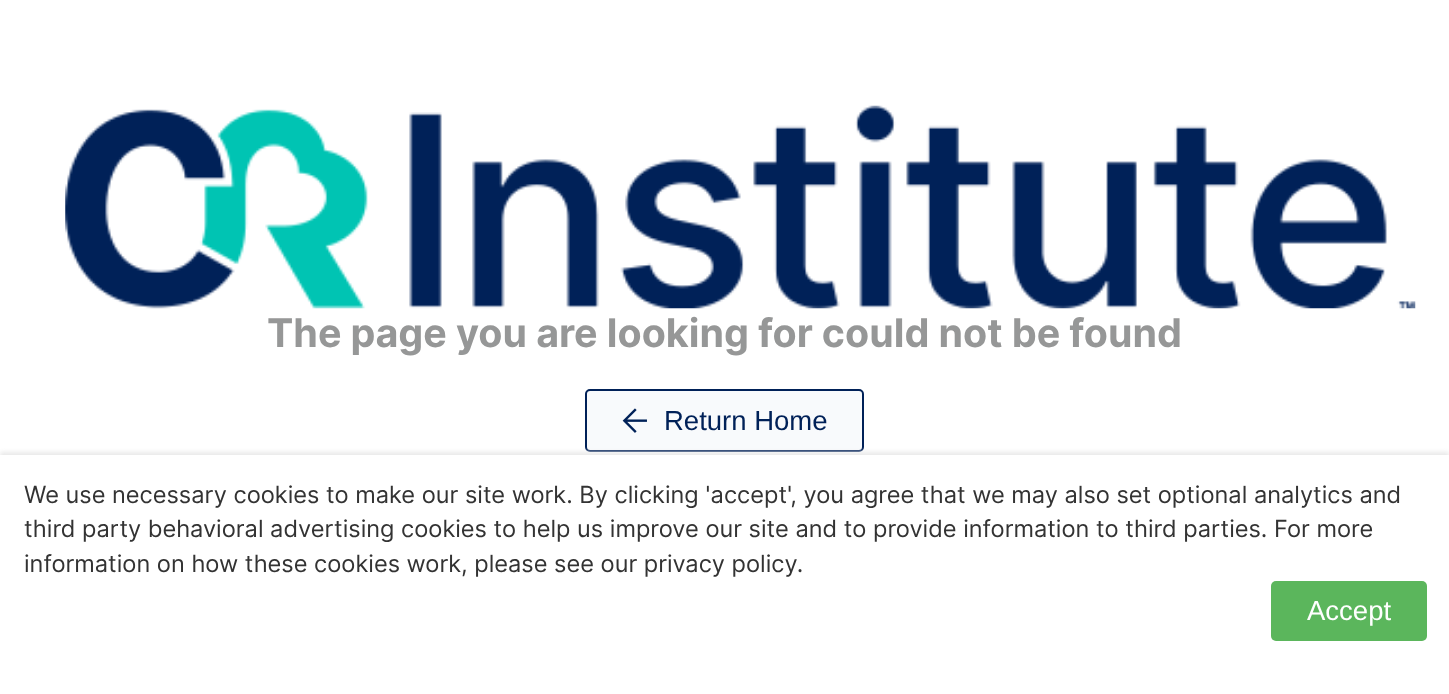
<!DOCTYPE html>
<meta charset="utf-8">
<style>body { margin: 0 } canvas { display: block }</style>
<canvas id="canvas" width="1449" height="694"></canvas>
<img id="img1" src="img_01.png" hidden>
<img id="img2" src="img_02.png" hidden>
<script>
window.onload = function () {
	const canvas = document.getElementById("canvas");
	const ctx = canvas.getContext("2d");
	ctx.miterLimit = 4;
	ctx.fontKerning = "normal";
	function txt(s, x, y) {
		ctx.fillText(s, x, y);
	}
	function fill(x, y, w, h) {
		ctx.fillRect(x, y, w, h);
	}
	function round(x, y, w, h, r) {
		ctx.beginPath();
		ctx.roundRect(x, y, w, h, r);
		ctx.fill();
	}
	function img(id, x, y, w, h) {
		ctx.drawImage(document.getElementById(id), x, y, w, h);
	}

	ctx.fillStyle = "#FFFFFF";
	fill(0, 0, 1449, 694);
	img("img1", 65, 105, 1351, 204);
	ctx.fillStyle = "#F8FAFC";
	ctx.beginPath();
	ctx.roundRect(586, 390, 277, 61, 4);
	ctx.fill();
	ctx.strokeStyle = "#002158";
	ctx.lineWidth = 2;
	ctx.stroke();
	img("img2", 622, 408, 25, 25);
	ctx.fillStyle = "#E9E9E9";
	ctx.filter = "blur(2px)";
	ctx.beginPath();
	ctx.rect(0, 452, 1449, 241);
	ctx.fill();
	ctx.filter = "none";
	ctx.fillStyle = "#FFFFFF";
	fill(0, 455, 1449, 239);
	ctx.fillStyle = "#5BB65C";
	round(1271, 581, 156, 60, 5);
	ctx.font = "bold 39.4px Inter";
	ctx.fillStyle = "#969797";
	txt("The page you are looking for could not be found", 267, 347);
	ctx.font = "27.5px Liberation Sans";
	ctx.fillStyle = "#002158";
	txt("Return Home", 664, 430);
	ctx.font = "23.62px Inter";
	ctx.fillStyle = "#333333";
	txt("We use necessary cookies to make our site work. By clicking 'accept', you agree that we may also set optional analytics and", 24, 503);
	txt("third party behavioral advertising cookies to help us improve our site and to provide information to third parties. For more", 24, 537);
	txt("information on how these cookies work, please see our privacy policy.", 24, 572);
	ctx.font = "27.5px Liberation Sans";
	ctx.fillStyle = "#FFFFFF";
	txt("Accept", 1307, 620);
};
</script>
